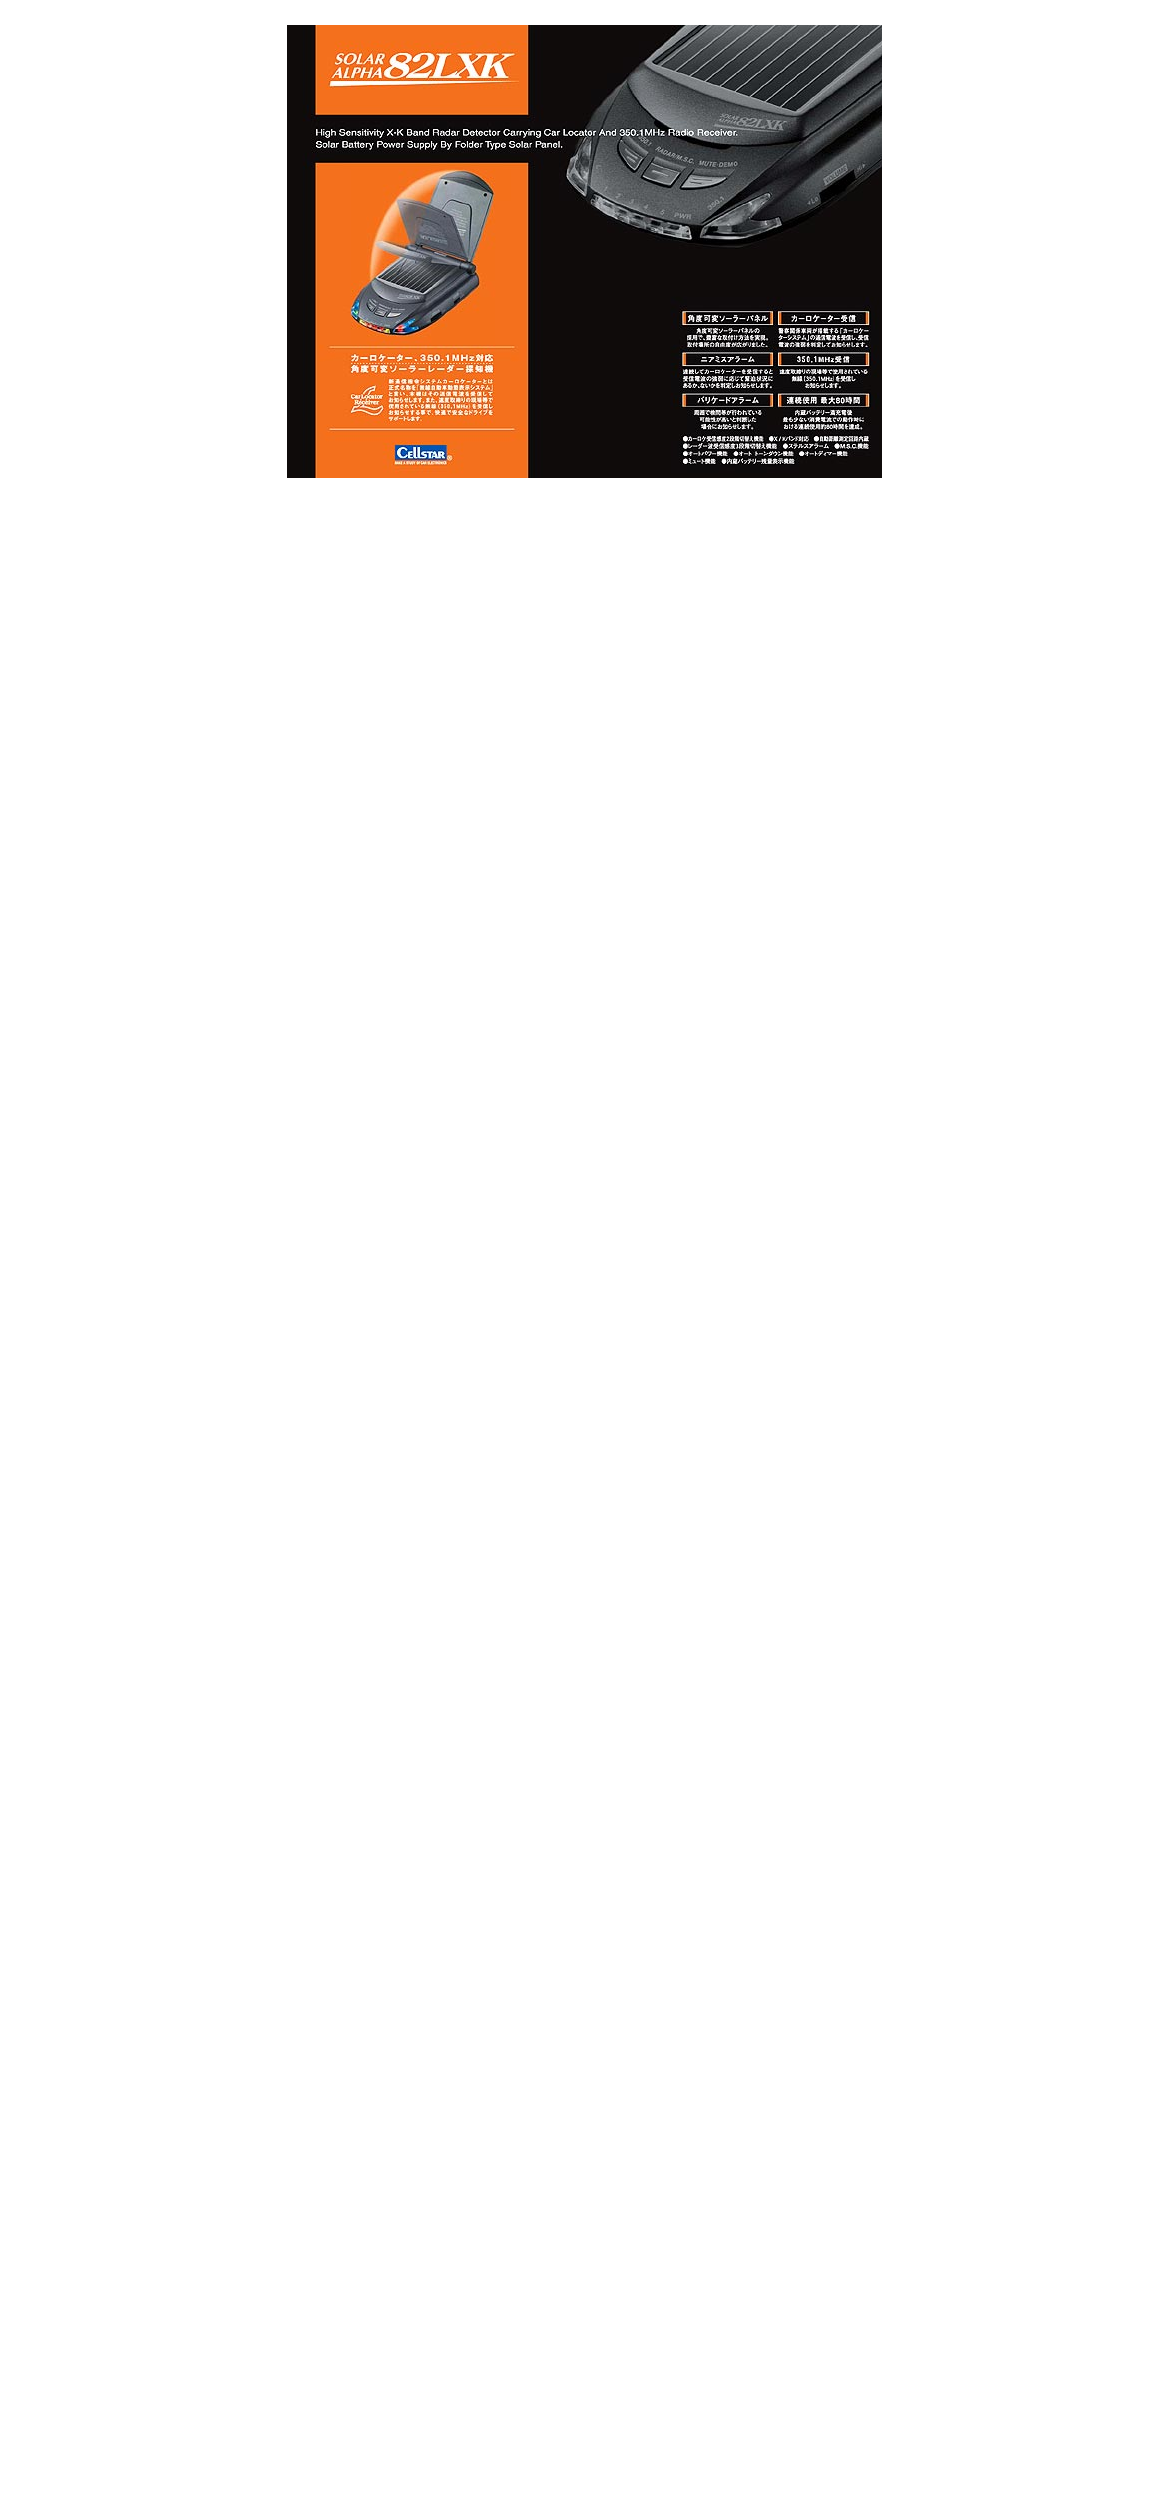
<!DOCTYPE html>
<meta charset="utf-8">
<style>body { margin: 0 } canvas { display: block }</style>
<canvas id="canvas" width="1168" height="2496"></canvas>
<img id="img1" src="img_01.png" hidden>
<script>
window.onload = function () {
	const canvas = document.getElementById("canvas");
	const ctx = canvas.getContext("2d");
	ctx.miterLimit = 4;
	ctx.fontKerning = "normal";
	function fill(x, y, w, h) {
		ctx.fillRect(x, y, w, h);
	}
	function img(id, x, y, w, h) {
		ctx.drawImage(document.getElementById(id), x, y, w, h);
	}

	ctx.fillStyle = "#FFFFFF";
	fill(0, 0, 1168, 2496);
	img("img1", 287, 25, 595, 453);
};
</script>
